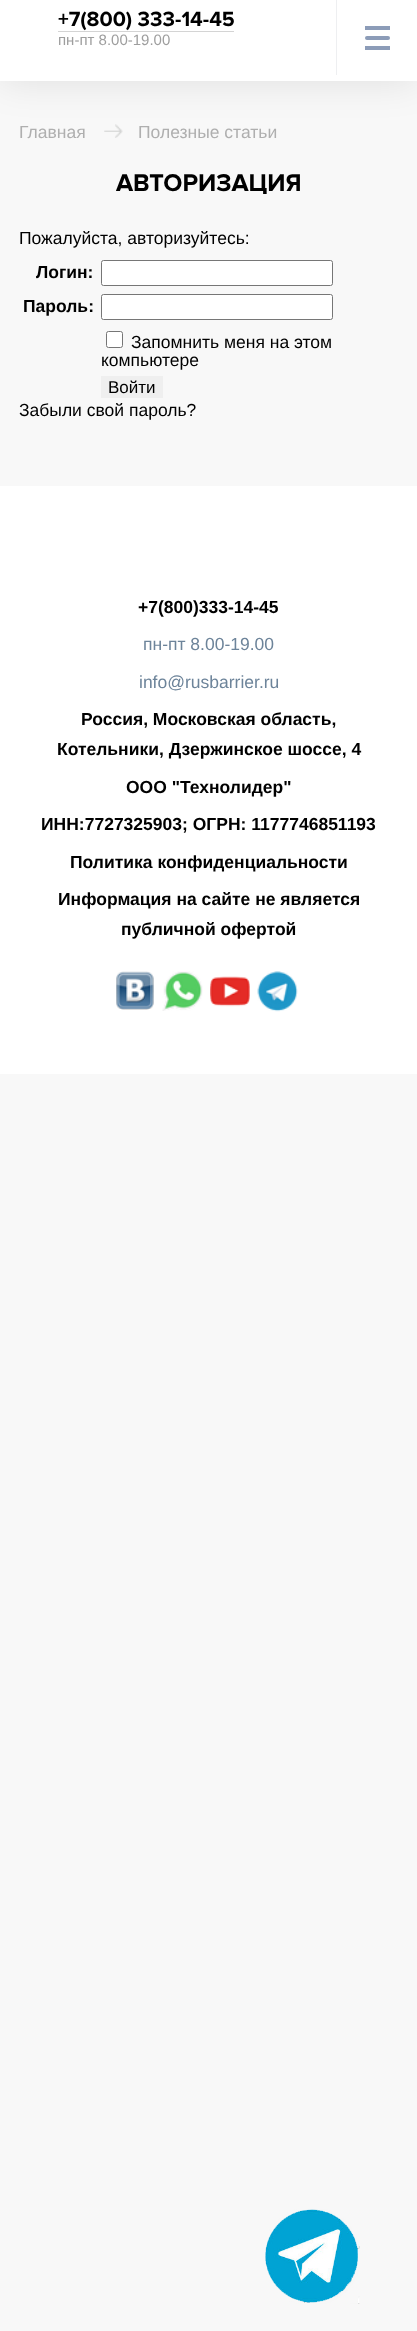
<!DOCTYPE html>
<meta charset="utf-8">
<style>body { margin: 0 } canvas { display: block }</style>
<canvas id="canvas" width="417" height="2331"></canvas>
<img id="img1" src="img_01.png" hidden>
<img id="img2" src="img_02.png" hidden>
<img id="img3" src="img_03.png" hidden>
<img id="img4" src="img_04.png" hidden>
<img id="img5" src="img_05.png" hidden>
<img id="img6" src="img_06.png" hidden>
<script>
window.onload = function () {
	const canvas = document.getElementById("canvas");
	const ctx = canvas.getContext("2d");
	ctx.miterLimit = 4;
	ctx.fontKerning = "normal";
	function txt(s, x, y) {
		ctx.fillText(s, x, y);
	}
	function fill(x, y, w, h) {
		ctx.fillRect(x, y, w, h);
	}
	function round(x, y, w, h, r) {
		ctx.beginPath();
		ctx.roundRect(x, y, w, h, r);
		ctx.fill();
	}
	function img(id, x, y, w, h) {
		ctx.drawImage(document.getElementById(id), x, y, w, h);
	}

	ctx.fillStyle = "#F8F8F8";
	fill(0, 0, 417, 2331);
	img("img1", 104, 124, 19, 14);
	ctx.fillStyle = "rgba(0, 0, 0, 0.1)";
	ctx.filter = "blur(19px)";
	ctx.beginPath();
	ctx.rect(0, 0, 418, 81);
	ctx.fill();
	ctx.filter = "none";
	ctx.fillStyle = "#FFFFFF";
	fill(0, 0, 417, 81);
	ctx.fillStyle = "#D4D4D4";
	fill(58, 31, 176, 1);
	ctx.fillStyle = "#EEEFF1";
	fill(336, 0, 1, 75);
	ctx.fillStyle = "#8C9CB8";
	fill(365, 26, 25, 4);
	round(365, 36, 25, 4, 2);
	fill(365, 46, 25, 4);
	ctx.fillStyle = "#FFFFFF";
	ctx.beginPath();
	ctx.roundRect(101.5, 260.5, 231, 25, 2);
	ctx.fill();
	ctx.strokeStyle = "#767676";
	ctx.stroke();
	ctx.beginPath();
	ctx.roundRect(101.5, 294.5, 231, 25, 2);
	ctx.fill();
	ctx.stroke();
	ctx.beginPath();
	ctx.roundRect(106.5, 331.5, 16, 16, 2);
	ctx.fill();
	ctx.stroke();
	ctx.fillStyle = "#EFEFEF";
	fill(101, 376, 62, 22);
	ctx.fillStyle = "#FFFFFF";
	fill(0, 486, 417, 588);
	img("img2", 116, 971, 38, 39);
	img("img3", 162, 971, 41, 40);
	img("img4", 210, 976, 40, 31);
	img("img5", 257, 971, 41, 41);
	img("img6", 265, 2209, 95, 95);
	ctx.font = "bold 21.25px Proxima Nova";
	ctx.fillStyle = "#000000";
	txt("+7(800) 333-14-45", 58, 26);
	ctx.font = "15px Liberation Sans";
	ctx.fillStyle = "#9E9E9E";
	txt("пн-пт 8.00-19.00", 58, 45);
	ctx.font = "17.5px Liberation Sans";
	ctx.fillStyle = "#AFAFAF";
	txt("Главная", 19, 138);
	txt("Полезные статьи", 138, 138);
	ctx.font = "bold 25px Proxima Nova";
	ctx.fillStyle = "#000000";
	txt("АВТОРИЗАЦИЯ", 116, 191);
	ctx.font = "17.5px Liberation Sans";
	txt("Пожалуйста, авторизуйтесь:", 19, 244);
	ctx.font = "bold 17.5px Liberation Sans";
	txt("Логин:", 36, 278);
	txt("Пароль:", 23, 312);
	ctx.font = "17.5px Liberation Sans";
	txt("Запомнить меня на этом", 131, 348);
	txt("компьютере", 101, 366);
	ctx.font = "17px Liberation Sans";
	txt("Войти", 108, 393);
	ctx.font = "17.5px Liberation Sans";
	txt("Забыли свой пароль?", 19, 416);
	ctx.font = "bold 17.5px Liberation Sans";
	txt("+7(800)333-14-45", 138, 613);
	ctx.font = "17.5px Liberation Sans";
	ctx.fillStyle = "#6D849A";
	txt("пн-пт 8.00-19.00", 143, 650);
	txt("info@rusbarrier.ru", 139, 688);
	ctx.font = "bold 17.5px Liberation Sans";
	ctx.fillStyle = "#000000";
	txt("Россия, Московская область,", 81, 725);
	txt("Котельники, Дзержинское шоссе, 4", 57, 755);
	txt("ООО \"Технолидер\"", 126, 793);
	txt("ИНН:7727325903; ОГРН: 1177746851193", 41, 830);
	txt("Политика конфиденциальности", 70, 868);
	txt("Информация на сайте не является", 58, 905);
	txt("публичной офертой", 121, 935);
};
</script>
